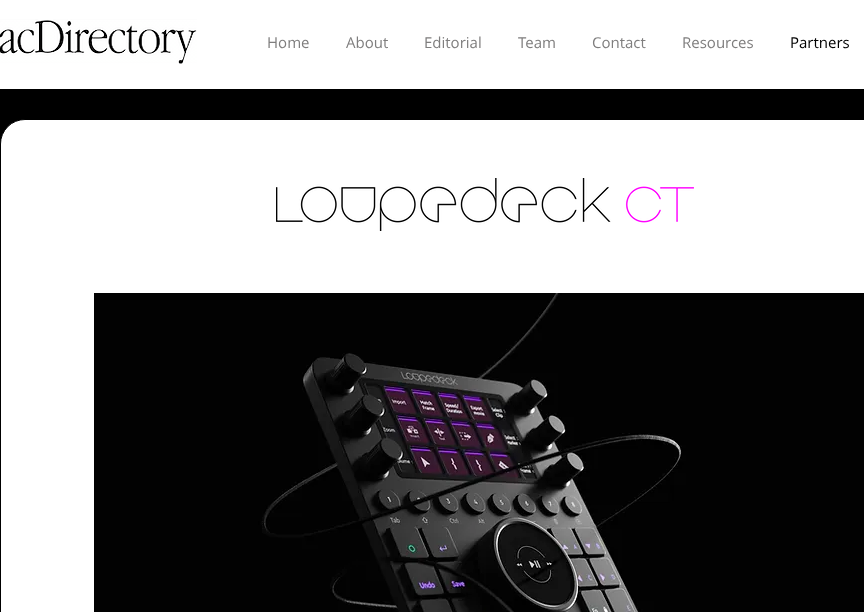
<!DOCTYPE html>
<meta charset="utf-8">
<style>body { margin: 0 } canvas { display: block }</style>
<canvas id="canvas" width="864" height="612"></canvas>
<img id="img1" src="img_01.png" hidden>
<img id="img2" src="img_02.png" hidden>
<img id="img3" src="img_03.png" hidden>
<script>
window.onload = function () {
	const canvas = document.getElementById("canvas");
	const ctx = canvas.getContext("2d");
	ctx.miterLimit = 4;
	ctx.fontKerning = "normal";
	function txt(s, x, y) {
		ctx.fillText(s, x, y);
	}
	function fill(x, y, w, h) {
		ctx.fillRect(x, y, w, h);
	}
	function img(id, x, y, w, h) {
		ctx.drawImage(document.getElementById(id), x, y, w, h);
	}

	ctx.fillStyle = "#000000";
	fill(0, 0, 864, 612);
	ctx.fillStyle = "#FFFFFF";
	fill(0, 0, 864, 89);
	img("img1", 0, 19, 197, 45);
	ctx.beginPath();
	ctx.roundRect(0.5, 119.5, 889, 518, 24.5);
	ctx.fill();
	ctx.strokeStyle = "#000000";
	ctx.stroke();
	img("img2", 276, 178, 418, 53);
	img("img3", 94, 293, 770, 319);
	ctx.font = "15px Open Sans";
	ctx.fillStyle = "#7F7E7E";
	txt("Home", 267, 48);
	txt("About", 346, 48);
	txt("Editorial", 424, 48);
	txt("Team", 518, 48);
	txt("Contact", 592, 48);
	txt("Resources", 682, 48);
	ctx.fillStyle = "#000000";
	txt("Partners", 790, 48);
};
</script>
